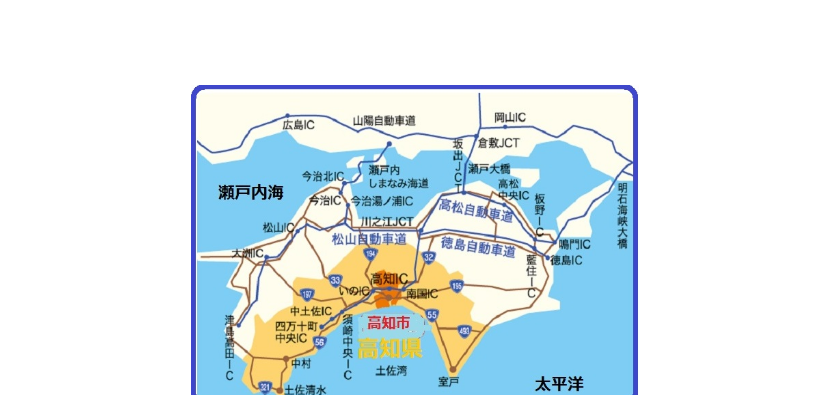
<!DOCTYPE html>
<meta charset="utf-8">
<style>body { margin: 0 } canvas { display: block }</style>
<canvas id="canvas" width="831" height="395"></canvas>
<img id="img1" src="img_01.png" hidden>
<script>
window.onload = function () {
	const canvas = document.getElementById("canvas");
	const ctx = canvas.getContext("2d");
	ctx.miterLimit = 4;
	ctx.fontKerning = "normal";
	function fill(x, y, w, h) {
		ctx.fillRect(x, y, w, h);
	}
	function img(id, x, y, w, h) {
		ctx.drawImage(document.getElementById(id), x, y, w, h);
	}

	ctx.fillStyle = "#FFFFFF";
	fill(0, 0, 831, 395);
	img("img1", 191, 85, 448, 310);
};
</script>
